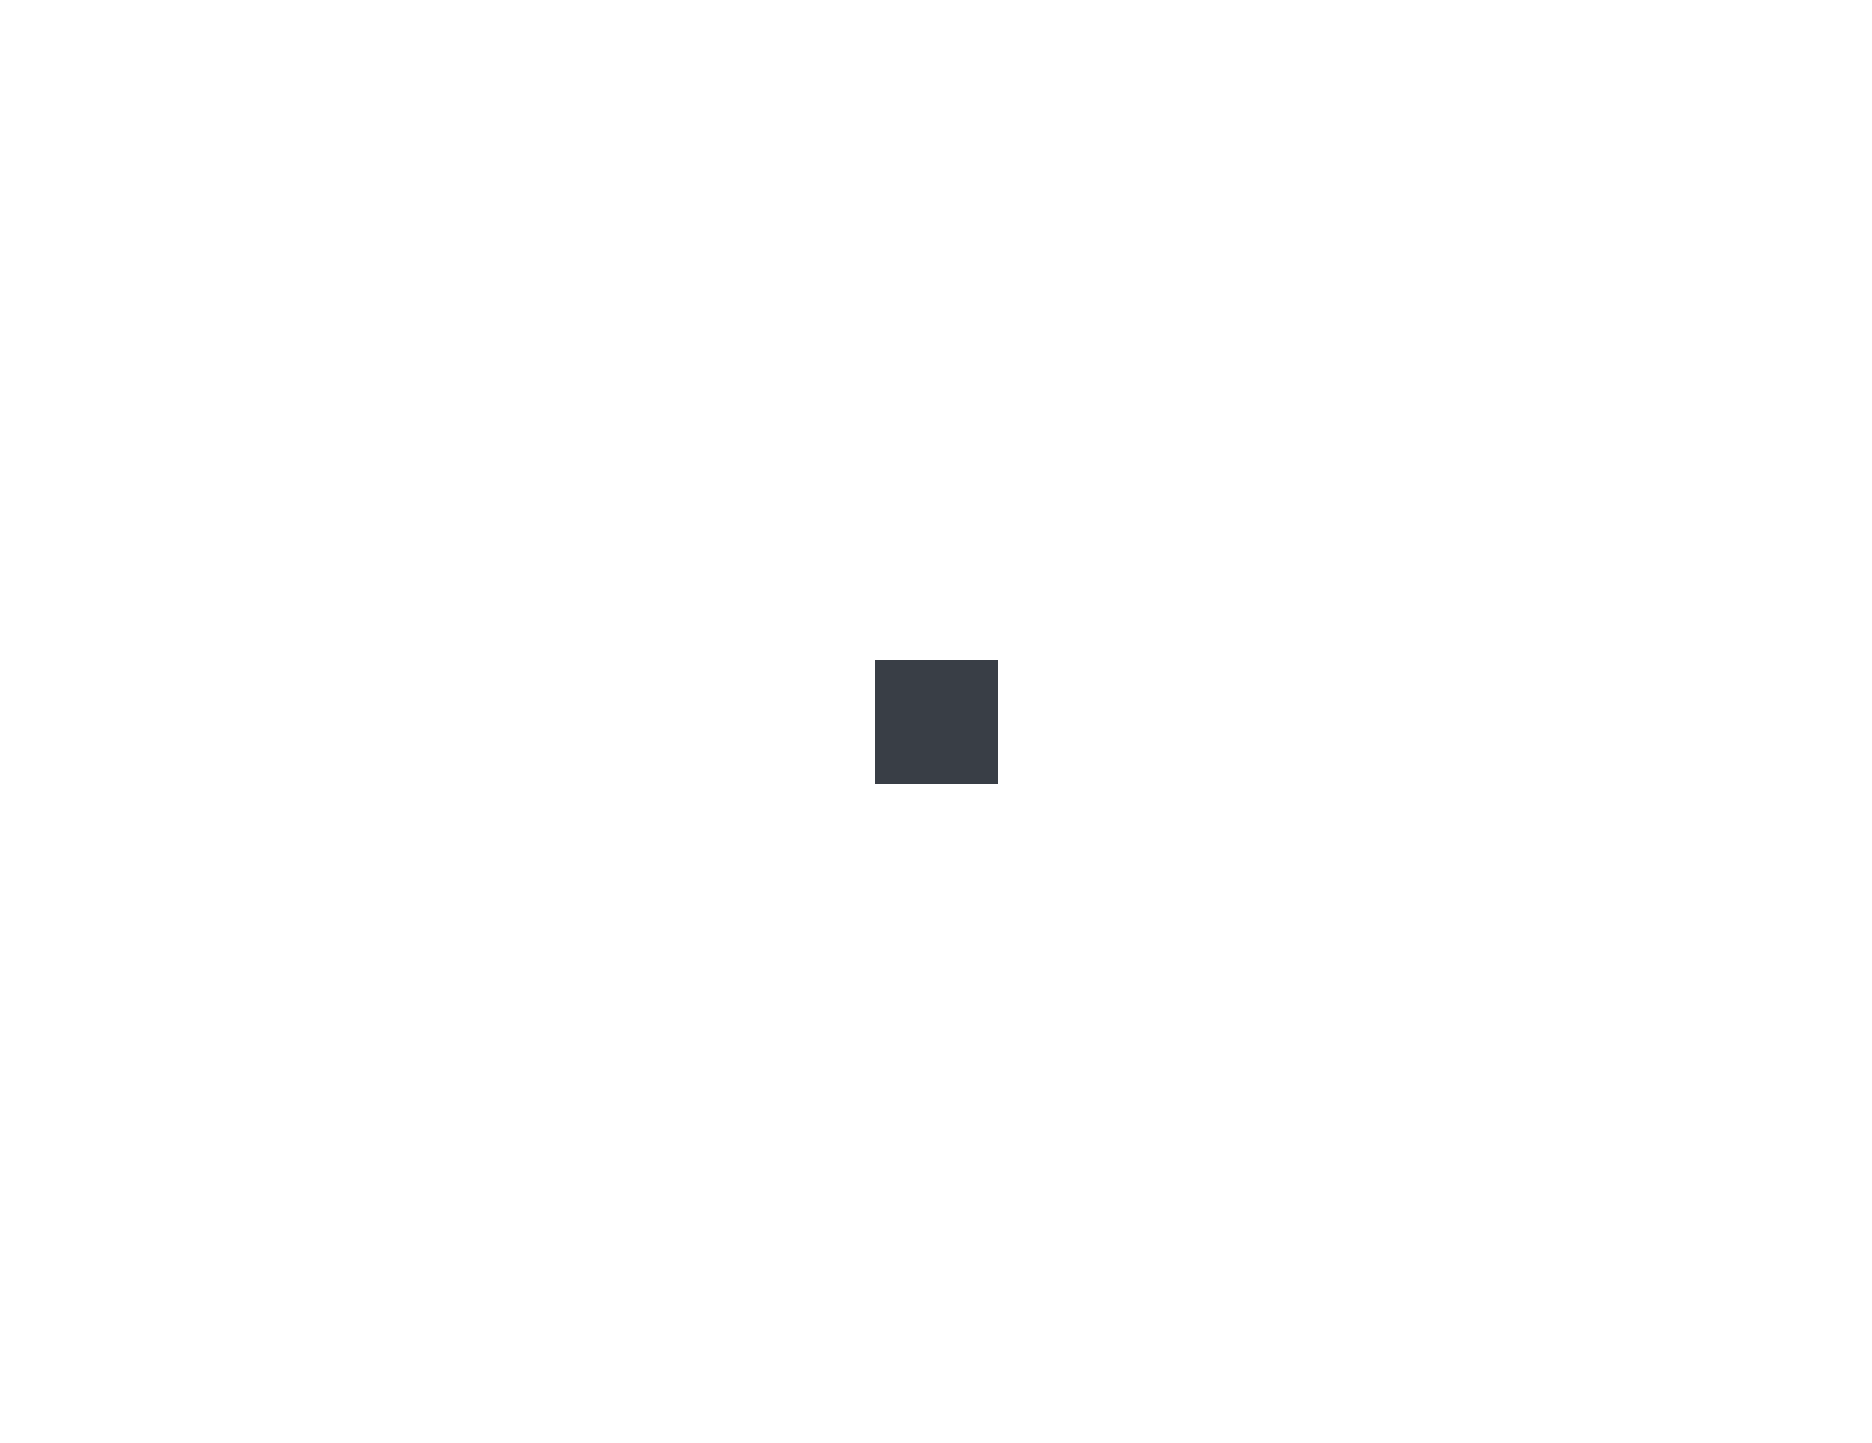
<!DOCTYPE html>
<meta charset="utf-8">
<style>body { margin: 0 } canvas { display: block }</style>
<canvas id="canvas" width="1872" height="1443"></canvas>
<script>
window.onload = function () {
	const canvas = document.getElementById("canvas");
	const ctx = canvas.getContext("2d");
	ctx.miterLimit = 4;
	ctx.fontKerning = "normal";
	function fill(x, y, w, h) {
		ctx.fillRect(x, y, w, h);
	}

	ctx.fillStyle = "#FFFFFF";
	fill(0, 0, 1872, 1443);
	ctx.fillStyle = "#393E46";
	fill(875, 660, 123, 124);
};
</script>
